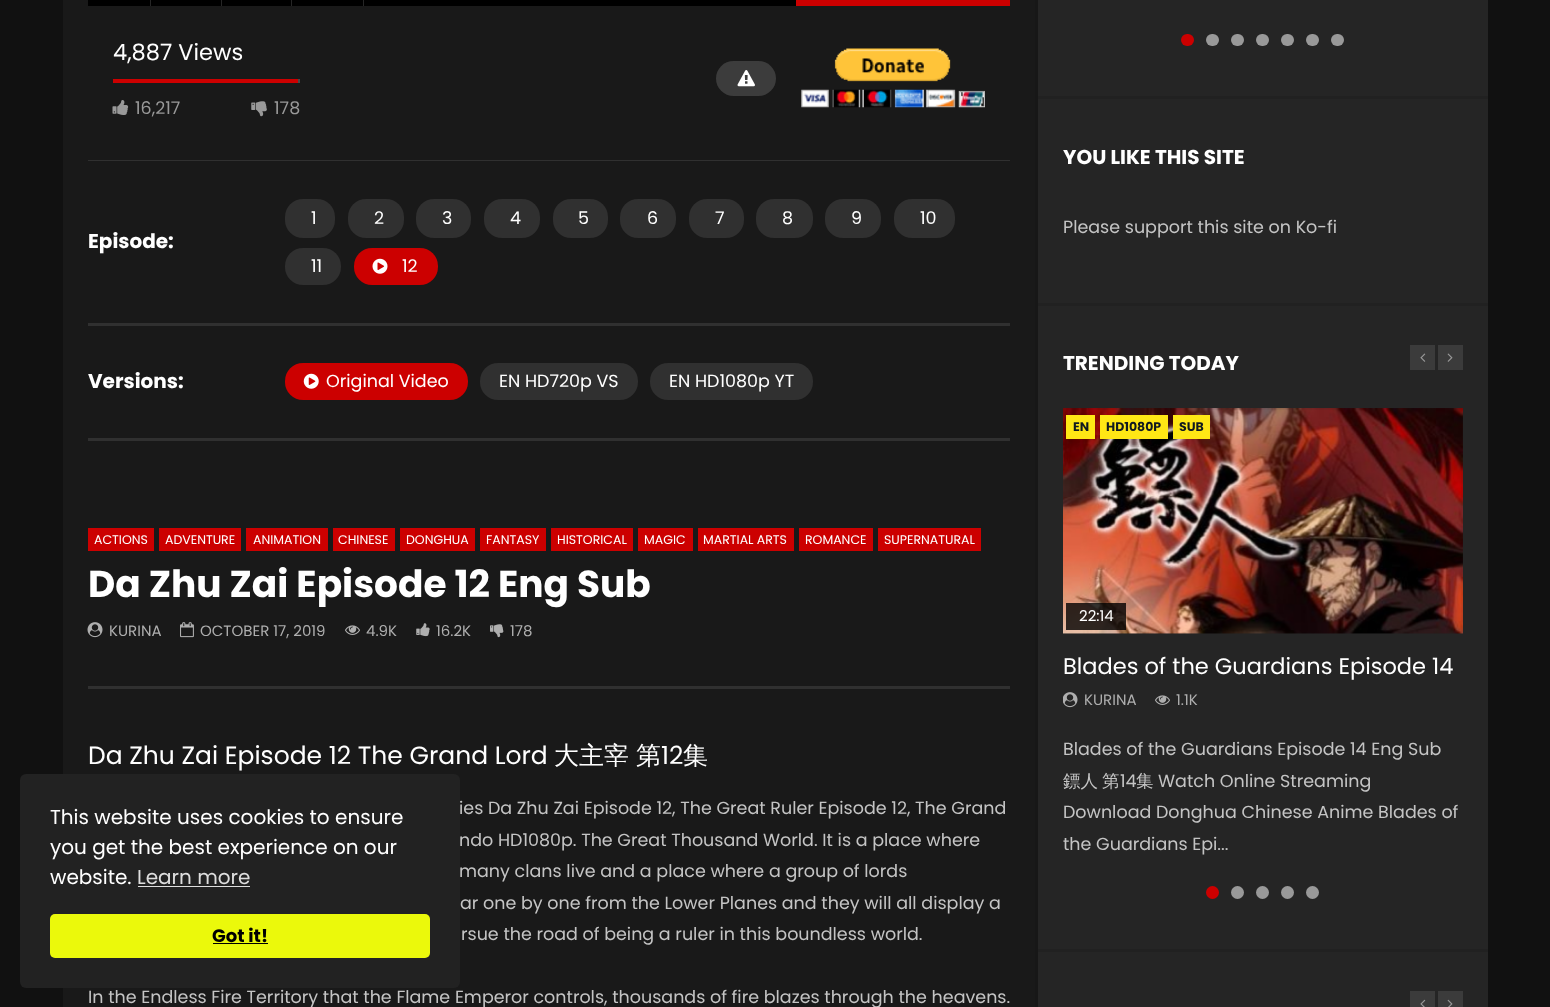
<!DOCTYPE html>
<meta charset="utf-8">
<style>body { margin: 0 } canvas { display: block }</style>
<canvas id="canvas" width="1550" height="1007"></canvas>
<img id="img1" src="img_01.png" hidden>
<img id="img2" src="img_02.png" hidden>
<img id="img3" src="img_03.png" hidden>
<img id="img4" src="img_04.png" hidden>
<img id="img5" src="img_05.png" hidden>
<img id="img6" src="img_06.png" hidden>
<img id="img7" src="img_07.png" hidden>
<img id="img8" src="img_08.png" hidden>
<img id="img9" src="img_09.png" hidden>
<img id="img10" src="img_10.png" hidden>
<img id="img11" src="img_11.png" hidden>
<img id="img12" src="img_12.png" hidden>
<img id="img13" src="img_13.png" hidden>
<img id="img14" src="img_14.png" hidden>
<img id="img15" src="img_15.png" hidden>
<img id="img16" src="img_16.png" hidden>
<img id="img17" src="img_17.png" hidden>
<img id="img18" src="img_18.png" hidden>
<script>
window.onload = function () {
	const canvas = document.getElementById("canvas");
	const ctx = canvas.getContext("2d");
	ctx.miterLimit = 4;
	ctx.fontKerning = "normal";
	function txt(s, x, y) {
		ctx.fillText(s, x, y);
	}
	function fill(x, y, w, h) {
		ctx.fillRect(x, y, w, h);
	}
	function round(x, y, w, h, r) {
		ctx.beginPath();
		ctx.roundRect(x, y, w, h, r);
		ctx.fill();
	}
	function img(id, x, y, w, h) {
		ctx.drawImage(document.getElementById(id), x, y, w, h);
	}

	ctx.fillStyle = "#111111";
	fill(0, 0, 1550, 1007);
	ctx.fillStyle = "#191919";
	fill(63, 0, 972, 1007);
	ctx.fillStyle = "#171717";
	fill(1035, 0, 3, 1007);
	ctx.fillStyle = "#000000";
	fill(88, 0, 708, 6);
	ctx.fillStyle = "#262626";
	fill(150, 0, 1, 6);
	fill(221, 0, 1, 6);
	fill(291, 0, 1, 6);
	fill(363, 0, 1, 6);
	ctx.fillStyle = "#CC0000";
	fill(796, 0, 214, 6);
	ctx.fillStyle = "#474747";
	fill(298, 79, 2, 4);
	ctx.fillStyle = "#CC0000";
	fill(113, 79, 185, 4);
	img("img1", 112, 100, 17, 15);
	img("img2", 251, 101, 16, 16);
	ctx.fillStyle = "#3C3C3C";
	round(716, 61, 60, 35, 17.5);
	img("img3", 737, 70, 18, 17);
	img("img4", 801, 48, 184, 60);
	ctx.fillStyle = "#303030";
	fill(88, 160, 922, 1);
	fill(88, 323, 922, 3);
	round(285, 199, 50, 39, 18);
	round(348, 199, 56, 39, 18);
	round(416, 199, 55, 39, 18);
	round(484, 199, 56, 39, 18);
	round(553, 199, 55, 39, 18);
	round(620, 199, 56, 39, 18);
	round(689, 199, 55, 39, 18);
	round(756, 199, 57, 39, 18);
	round(825, 199, 56, 39, 18);
	round(894, 199, 61, 39, 18);
	round(285, 248, 56, 37, 18);
	ctx.fillStyle = "#CC0000";
	round(354, 248, 84, 37, 18);
	img("img5", 372, 258, 16, 16);
	ctx.fillStyle = "#303030";
	fill(88, 438, 922, 3);
	ctx.fillStyle = "#CC0000";
	round(285, 363, 183, 37, 18);
	img("img6", 303, 373, 16, 16);
	ctx.fillStyle = "#303030";
	round(480, 363, 158, 37, 18);
	round(650, 363, 163, 37, 18);
	fill(88, 686, 922, 3);
	ctx.fillStyle = "#CC0000";
	fill(88, 528, 66, 23);
	fill(159, 528, 82, 23);
	fill(246, 528, 82, 23);
	fill(333, 528, 62, 23);
	fill(400, 528, 75, 23);
	fill(480, 528, 66, 23);
	fill(551, 528, 82, 23);
	fill(638, 528, 55, 23);
	fill(698, 528, 96, 23);
	fill(799, 528, 74, 23);
	fill(878, 528, 103, 23);
	img("img7", 87, 622, 16, 16);
	img("img8", 180, 622, 14, 16);
	img("img9", 345, 625, 15, 10);
	img("img10", 416, 623, 14, 14);
	img("img11", 490, 624, 14, 14);
	ctx.fillStyle = "#252525";
	fill(1038, 0, 450, 1007);
	ctx.fillStyle = "#212121";
	fill(1038, 96, 450, 3);
	ctx.fillStyle = "#CC0000";
	round(1181, 34, 13, 12, 6);
	ctx.fillStyle = "#999999";
	round(1206, 34, 13, 12, 6);
	round(1231, 34, 13, 12, 6);
	round(1256, 34, 13, 12, 6);
	round(1281, 34, 13, 12, 6);
	round(1306, 34, 13, 12, 6);
	round(1331, 34, 13, 12, 6);
	ctx.fillStyle = "#212121";
	fill(1038, 303, 450, 3);
	fill(1038, 949, 450, 3);
	ctx.fillStyle = "#3B3B3B";
	fill(1410, 345, 25, 25);
	img("img12", 1420, 353, 6, 9);
	fill(1438, 345, 25, 25);
	img("img13", 1447, 353, 6, 9);
	img("img14", 1063, 408, 400, 226);
	ctx.fillStyle = "#FFE715";
	fill(1066, 415, 29, 24);
	fill(1100, 415, 68, 24);
	fill(1173, 415, 37, 24);
	ctx.fillStyle = "rgba(0, 0, 0, 0.8)";
	fill(1066, 603, 60, 27);
	img("img15", 1063, 692, 15, 16);
	img("img16", 1155, 695, 15, 10);
	ctx.fillStyle = "#CC0000";
	ctx.beginPath();
	ctx.arc(1212.5, 892.5, 6.5, 0, Math.PI * 2);
	ctx.fill();
	ctx.fillStyle = "#999999";
	ctx.beginPath();
	ctx.arc(1237.5, 892.5, 6.5, 0, Math.PI * 2);
	ctx.fill();
	ctx.beginPath();
	ctx.arc(1262.5, 892.5, 6.5, 0, Math.PI * 2);
	ctx.fill();
	ctx.beginPath();
	ctx.arc(1287.5, 892.5, 6.5, 0, Math.PI * 2);
	ctx.fill();
	ctx.beginPath();
	ctx.arc(1312.5, 892.5, 6.5, 0, Math.PI * 2);
	ctx.fill();
	ctx.fillStyle = "#3B3B3B";
	fill(1410, 991, 25, 16);
	img("img17", 1420, 999, 6, 8);
	fill(1438, 991, 25, 16);
	img("img18", 1447, 999, 6, 8);
	ctx.fillStyle = "#222222";
	round(20, 774, 440, 214, 6);
	ctx.fillStyle = "#DEDEDE";
	fill(138, 886, 112, 1);
	ctx.fillStyle = "#EBF90B";
	round(50, 914, 380, 44, 5);
	ctx.fillStyle = "#000000";
	fill(213, 943, 55, 1);
	ctx.font = "22.5px Poppins";
	ctx.fillStyle = "#FFFFFF";
	txt("4,887 Views", 113, 60);
	ctx.font = "17.5px Poppins";
	ctx.fillStyle = "#999999";
	txt("16,217", 135, 114);
	txt("178", 274, 114);
	ctx.font = "bold 20px Poppins";
	ctx.fillStyle = "#FFFFFF";
	txt("Episode:", 88, 248);
	ctx.font = "17.5px Poppins";
	txt("1", 311, 224);
	txt("2", 374, 224);
	txt("3", 442, 224);
	txt("4", 510, 224);
	txt("5", 578, 224);
	txt("6", 647, 224);
	txt("7", 715, 224);
	txt("8", 782, 224);
	txt("9", 851, 224);
	txt("10", 920, 224);
	txt("11", 311, 272);
	txt("12", 402, 272);
	ctx.font = "bold 20px Poppins";
	txt("Versions:", 88, 388);
	ctx.font = "17.5px Poppins";
	txt("Original Video", 326, 387);
	txt("EN HD720p VS", 499, 387);
	txt("EN HD1080p YT", 669, 387);
	ctx.font = "12.5px Poppins";
	txt("ACTIONS", 94, 544);
	txt("ADVENTURE", 165, 544);
	txt("ANIMATION", 253, 544);
	txt("CHINESE", 338, 544);
	txt("DONGHUA", 406, 544);
	txt("FANTASY", 486, 544);
	txt("HISTORICAL", 557, 544);
	txt("MAGIC", 644, 544);
	txt("MARTIAL ARTS", 703, 544);
	txt("ROMANCE", 805, 544);
	txt("SUPERNATURAL", 884, 544);
	ctx.font = "bold 37.5px Poppins";
	txt("Da Zhu Zai Episode 12 Eng Sub", 88, 597);
	ctx.font = "15px Poppins";
	ctx.fillStyle = "#AEAEAE";
	txt("KURINA", 109, 636);
	txt("OCTOBER 17, 2019", 200, 636);
	txt("4.9K", 366, 636);
	txt("16.2K", 436, 636);
	txt("178", 510, 636);
	ctx.font = "25px Poppins";
	ctx.fillStyle = "#FFFFFF";
	txt("Da Zhu Zai Episode 12 The Grand Lord", 88, 764);
	ctx.font = "500 25px WenQuanYi Zen Hei";
	txt("大主宰", 554, 764);
	txt("第", 636, 764);
	ctx.font = "25px Poppins";
	txt("12", 661, 764);
	ctx.font = "500 25px WenQuanYi Zen Hei";
	txt("集", 683, 764);
	ctx.font = "17.5px Poppins";
	ctx.fillStyle = "#C4C4C4";
	txt("ies Da Zhu Zai Episode 12, The Great Ruler Episode 12, The Grand", 459, 814);
	txt("ndo HD1080p. The Great Thousand World. It is a place where", 459, 846);
	txt("many clans live and a place where a group of lords", 459, 877);
	txt("ar one by one from the Lower Planes and they will all display a", 460, 909);
	txt("rsue the road of being a ruler in this boundless world.", 461, 940);
	txt("In the Endless Fire Territory that the Flame Emperor controls, thousands of fire blazes through the heavens.", 88, 1003);
	ctx.font = "bold 20px Poppins";
	ctx.fillStyle = "#FFFFFF";
	txt("YOU LIKE THIS SITE", 1063, 164);
	ctx.font = "17.5px Poppins";
	ctx.fillStyle = "#C4C4C4";
	txt("Please support this site on Ko-fi", 1063, 233);
	ctx.font = "bold 20px Poppins";
	ctx.fillStyle = "#FFFFFF";
	txt("TRENDING TODAY", 1063, 370);
	ctx.font = "bold 12.5px Poppins";
	ctx.fillStyle = "#101920";
	txt("EN", 1073, 431);
	txt("HD1080P", 1106, 431);
	txt("SUB", 1179, 431);
	ctx.font = "15px Poppins";
	ctx.fillStyle = "#FFFFFF";
	txt("22:14", 1079, 621);
	ctx.font = "22.5px Poppins";
	txt("Blades of the Guardians Episode 14", 1063, 674);
	ctx.font = "15px Poppins";
	ctx.fillStyle = "#AEAEAE";
	txt("KURINA", 1084, 705);
	txt("1.1K", 1176, 705);
	ctx.font = "17.5px Poppins";
	ctx.fillStyle = "#C4C4C4";
	txt("Blades of the Guardians Episode 14 Eng Sub", 1063, 755);
	ctx.font = "500 17.5px WenQuanYi Zen Hei";
	txt("鏢人", 1063, 787);
	txt("第", 1102, 787);
	ctx.font = "17.5px Poppins";
	txt("14", 1120, 787);
	ctx.font = "500 17.5px WenQuanYi Zen Hei";
	txt("集", 1136, 787);
	ctx.font = "17.5px Poppins";
	txt("Watch Online Streaming", 1158, 787);
	txt("Download Donghua Chinese Anime Blades of", 1063, 818);
	txt("the Guardians Epi...", 1063, 850);
	ctx.font = "20px Poppins";
	ctx.fillStyle = "#FFFFFF";
	txt("This website uses cookies to ensure", 50, 824);
	txt("you get the best experience on our", 50, 854);
	txt("website.", 50, 884);
	ctx.fillStyle = "#DEDEDE";
	txt("Learn more", 137, 884);
	ctx.font = "bold 18px Poppins";
	ctx.fillStyle = "#000000";
	txt("Got it!", 212, 942);
};
</script>
